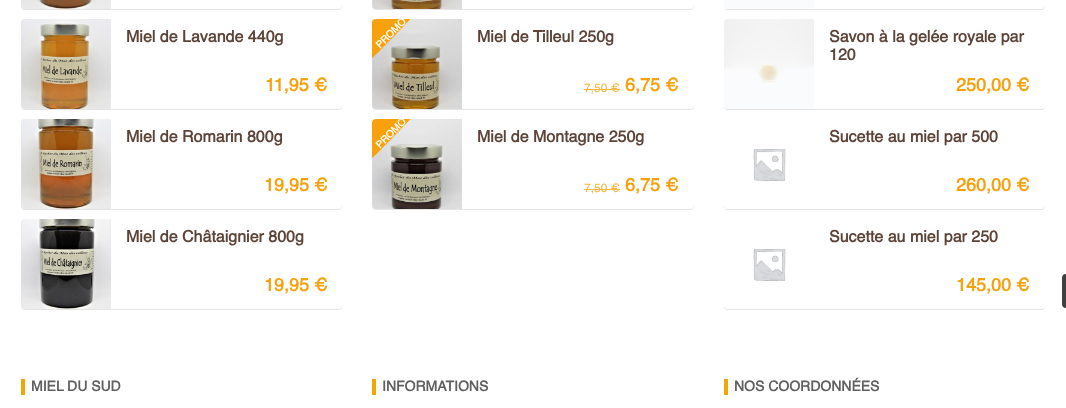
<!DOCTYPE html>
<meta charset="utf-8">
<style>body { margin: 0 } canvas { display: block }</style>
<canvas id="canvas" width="1066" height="408"></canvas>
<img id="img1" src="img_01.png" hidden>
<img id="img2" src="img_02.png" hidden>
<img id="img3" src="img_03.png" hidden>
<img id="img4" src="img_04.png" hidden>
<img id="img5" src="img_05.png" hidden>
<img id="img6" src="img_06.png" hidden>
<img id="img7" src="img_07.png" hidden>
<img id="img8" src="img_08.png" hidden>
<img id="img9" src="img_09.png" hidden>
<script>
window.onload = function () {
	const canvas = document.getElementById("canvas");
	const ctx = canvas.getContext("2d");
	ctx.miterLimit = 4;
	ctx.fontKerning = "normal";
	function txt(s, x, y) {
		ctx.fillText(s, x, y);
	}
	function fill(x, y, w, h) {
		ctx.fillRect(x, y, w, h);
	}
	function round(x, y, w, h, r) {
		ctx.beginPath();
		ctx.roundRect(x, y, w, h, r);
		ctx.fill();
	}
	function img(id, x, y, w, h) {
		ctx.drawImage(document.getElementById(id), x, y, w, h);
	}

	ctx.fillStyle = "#FFFFFF";
	fill(0, 0, 1066, 408);
	ctx.fillStyle = "rgba(0, 0, 0, 0.1)";
	ctx.filter = "blur(0.5px)";
	ctx.beginPath();
	ctx.roundRect(21, -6, 321, 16, 4);
	ctx.fill();
	ctx.filter = "none";
	ctx.fillStyle = "#FFFFFF";
	round(21, -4, 321, 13, 4);
	img("img1", 21, 0, 90, 9);
	ctx.fillStyle = "rgba(0, 0, 0, 0.1)";
	ctx.filter = "blur(0.5px)";
	ctx.beginPath();
	ctx.roundRect(21, 20, 321, 90, 4);
	ctx.fill();
	ctx.filter = "none";
	ctx.fillStyle = "#FFFFFF";
	round(21, 19, 321, 90, 4);
	img("img2", 21, 19, 90, 90);
	ctx.fillStyle = "rgba(0, 0, 0, 0.1)";
	ctx.filter = "blur(0.5px)";
	ctx.beginPath();
	ctx.roundRect(21, 120, 321, 90, 4);
	ctx.fill();
	ctx.filter = "none";
	ctx.fillStyle = "#FFFFFF";
	round(21, 119, 321, 90, 4);
	img("img3", 21, 119, 90, 90);
	ctx.fillStyle = "rgba(0, 0, 0, 0.1)";
	ctx.filter = "blur(0.5px)";
	ctx.beginPath();
	ctx.roundRect(21, 220, 321, 90, 4);
	ctx.fill();
	ctx.filter = "none";
	ctx.fillStyle = "#FFFFFF";
	round(21, 219, 321, 90, 4);
	img("img4", 21, 219, 90, 90);
	ctx.fillStyle = "rgba(0, 0, 0, 0.1)";
	ctx.filter = "blur(0.5px)";
	ctx.beginPath();
	ctx.roundRect(372, -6, 322, 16, 4);
	ctx.fill();
	ctx.filter = "none";
	ctx.fillStyle = "#FFFFFF";
	round(372, -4, 322, 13, 4);
	img("img5", 372, 0, 90, 9);
	ctx.fillStyle = "rgba(0, 0, 0, 0.1)";
	ctx.filter = "blur(0.5px)";
	ctx.beginPath();
	ctx.roundRect(372, 20, 322, 90, 4);
	ctx.fill();
	ctx.filter = "none";
	ctx.fillStyle = "#FFFFFF";
	round(372, 19, 322, 90, 4);
	img("img6", 372, 19, 90, 90);
	ctx.fillStyle = "#F7A10C";
	ctx.beginPath();
	ctx.moveTo(410.5, 19);
	ctx.lineTo(381.5, 19);
	ctx.bezierCurveTo(371.5, 19, 372, 19, 372, 28.5);
	ctx.lineTo(372, 58);
	ctx.bezierCurveTo(373, 58, 398, 32, 400, 30);
	ctx.closePath();
	ctx.fill();
	ctx.fillStyle = "#F9B43D";
	fill(584, 89, 36, 1);
	ctx.fillStyle = "rgba(0, 0, 0, 0.1)";
	ctx.filter = "blur(0.5px)";
	ctx.beginPath();
	ctx.roundRect(372, 120, 322, 90, 4);
	ctx.fill();
	ctx.filter = "none";
	ctx.fillStyle = "#FFFFFF";
	round(372, 119, 322, 90, 4);
	img("img7", 372, 119, 90, 90);
	ctx.fillStyle = "#F7A10C";
	ctx.beginPath();
	ctx.moveTo(410.5, 119);
	ctx.lineTo(381.5, 119);
	ctx.bezierCurveTo(371.5, 119, 372, 119, 372, 128.5);
	ctx.lineTo(372, 158);
	ctx.bezierCurveTo(373, 158, 398, 132, 400, 130);
	ctx.closePath();
	ctx.fill();
	ctx.fillStyle = "#F9B43D";
	fill(584, 189, 36, 1);
	ctx.fillStyle = "rgba(0, 0, 0, 0.1)";
	ctx.filter = "blur(0.5px)";
	ctx.beginPath();
	ctx.roundRect(724, -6, 321, 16, 4);
	ctx.fill();
	ctx.filter = "none";
	ctx.fillStyle = "#FFFFFF";
	round(724, -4, 321, 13, 4);
	ctx.fillStyle = "#FAFBFD";
	fill(724, 0, 90, 9);
	ctx.fillStyle = "rgba(0, 0, 0, 0.1)";
	ctx.filter = "blur(0.5px)";
	ctx.beginPath();
	ctx.roundRect(724, 20, 321, 90, 4);
	ctx.fill();
	ctx.filter = "none";
	ctx.fillStyle = "#FFFFFF";
	round(724, 19, 321, 90, 4);
	img("img8", 724, 19, 90, 90);
	ctx.fillStyle = "rgba(0, 0, 0, 0.1)";
	ctx.filter = "blur(0.5px)";
	ctx.beginPath();
	ctx.roundRect(724, 120, 321, 90, 4);
	ctx.fill();
	ctx.filter = "none";
	ctx.fillStyle = "#FFFFFF";
	round(724, 119, 321, 90, 4);
	img("img9", 725, 149, 61, 60);
	ctx.fillStyle = "rgba(0, 0, 0, 0.1)";
	ctx.filter = "blur(0.5px)";
	ctx.beginPath();
	ctx.roundRect(724, 220, 321, 90, 4);
	ctx.fill();
	ctx.filter = "none";
	ctx.fillStyle = "#FFFFFF";
	round(724, 219, 321, 90, 4);
	img("img9", 725, 249, 61, 60);
	ctx.fillStyle = "#404040";
	ctx.beginPath();
	ctx.roundRect(1062, 274, 4, 34, [4, 0, 0, 4]);
	ctx.fill();
	ctx.fillStyle = "#F2A700";
	fill(21, 379, 4, 16);
	fill(372, 379, 4, 16);
	fill(724, 379, 4, 16);
	ctx.font = "bold 16px Helvetica";
	ctx.fillStyle = "#5C4439";
	txt("Miel de Lavande 440g", 126, 42);
	ctx.font = "bold 18px Helvetica";
	ctx.fillStyle = "#F7A10C";
	txt("11,95 €", 265, 91);
	ctx.font = "bold 16px Helvetica";
	ctx.fillStyle = "#5C4439";
	txt("Miel de Romarin 800g", 126, 142);
	ctx.font = "bold 18px Helvetica";
	ctx.fillStyle = "#F7A10C";
	txt("19,95 €", 264, 191);
	ctx.font = "bold 16px Helvetica";
	ctx.fillStyle = "#5C4439";
	txt("Miel de Châtaignier 800g", 126, 242);
	ctx.font = "bold 18px Helvetica";
	ctx.fillStyle = "#F7A10C";
	txt("19,95 €", 264, 291);
	ctx.font = "bold 10px Helvetica";
	ctx.fillStyle = "#FFFFFF";
	ctx.save();
	ctx.translate(380, 49);
	ctx.rotate(-45 * Math.PI / 180);
	ctx.fillText("PROMO", 0, 0);
	ctx.restore();
	ctx.font = "bold 16px Helvetica";
	ctx.fillStyle = "#5C4439";
	txt("Miel de Tilleul 250g", 477, 42);
	ctx.font = "12px Helvetica";
	ctx.fillStyle = "#F9B43D";
	txt("7,50 €", 584, 92);
	ctx.font = "bold 18px Helvetica";
	ctx.fillStyle = "#F7A10C";
	txt("6,75 €", 625, 91);
	ctx.font = "bold 10px Helvetica";
	ctx.fillStyle = "#FFFFFF";
	ctx.save();
	ctx.translate(380, 149);
	ctx.rotate(-45 * Math.PI / 180);
	ctx.fillText("PROMO", 0, 0);
	ctx.restore();
	ctx.font = "bold 16px Helvetica";
	ctx.fillStyle = "#5C4439";
	txt("Miel de Montagne 250g", 477, 142);
	ctx.font = "12px Helvetica";
	ctx.fillStyle = "#F9B43D";
	txt("7,50 €", 584, 192);
	ctx.font = "bold 18px Helvetica";
	ctx.fillStyle = "#F7A10C";
	txt("6,75 €", 625, 191);
	ctx.font = "bold 16px Helvetica";
	ctx.fillStyle = "#5C4439";
	txt("Savon à la gelée royale par", 829, 42);
	txt("120", 829, 60);
	ctx.font = "bold 18px Helvetica";
	ctx.fillStyle = "#F7A10C";
	txt("250,00 €", 956, 91);
	ctx.font = "bold 16px Helvetica";
	ctx.fillStyle = "#5C4439";
	txt("Sucette au miel par 500", 829, 142);
	ctx.font = "bold 18px Helvetica";
	ctx.fillStyle = "#F7A10C";
	txt("260,00 €", 956, 191);
	ctx.font = "bold 16px Helvetica";
	ctx.fillStyle = "#5C4439";
	txt("Sucette au miel par 250", 829, 242);
	ctx.font = "bold 18px Helvetica";
	ctx.fillStyle = "#F7A10C";
	txt("145,00 €", 956, 291);
	ctx.font = "bold 14px Helvetica";
	ctx.fillStyle = "#606060";
	txt("MIEL DU SUD", 31, 391);
	txt("INFORMATIONS", 382, 391);
	txt("NOS COORDONNÉES", 734, 391);
};
</script>
